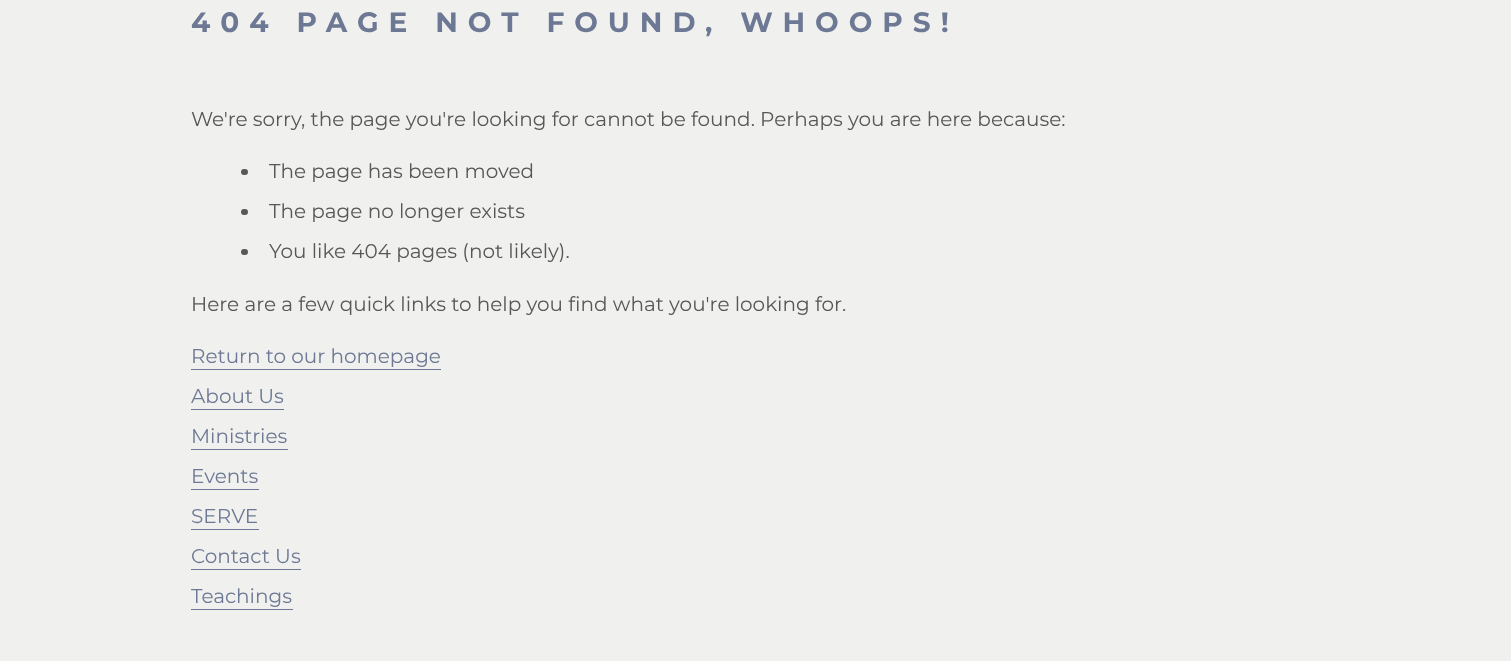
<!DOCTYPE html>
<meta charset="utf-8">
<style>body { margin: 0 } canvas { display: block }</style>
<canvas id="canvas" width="1511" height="661"></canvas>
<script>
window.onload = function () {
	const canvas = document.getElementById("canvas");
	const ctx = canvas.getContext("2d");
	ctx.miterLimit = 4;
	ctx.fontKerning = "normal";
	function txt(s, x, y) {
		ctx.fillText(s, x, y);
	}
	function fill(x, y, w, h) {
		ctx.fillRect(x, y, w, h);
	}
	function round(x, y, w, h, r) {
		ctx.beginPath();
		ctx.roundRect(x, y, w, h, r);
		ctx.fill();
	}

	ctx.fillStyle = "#F0F0EE";
	fill(0, 0, 1511, 661);
	ctx.fillStyle = "#575757";
	round(241, 169, 7, 6, 3);
	round(241, 209, 7, 6, 3);
	round(241, 249, 7, 6, 3);
	ctx.fillStyle = "#6D7994";
	fill(191, 369, 250, 1);
	fill(191, 409, 93, 1);
	fill(191, 449, 97, 1);
	fill(191, 489, 68, 1);
	fill(191, 529, 68, 1);
	fill(191, 569, 110, 1);
	fill(191, 609, 102, 1);
	ctx.letterSpacing = "10px";
	ctx.font = "bold 28px Montserrat";
	txt("404 PAGE NOT FOUND, WHOOPS!", 191, 32);
	ctx.letterSpacing = "0px";
	ctx.font = "20px Montserrat";
	ctx.fillStyle = "#575757";
	txt("We're sorry, the page you're looking for cannot be found. Perhaps you are here because:", 191, 126);
	txt("The page has been moved", 269, 178);
	txt("The page no longer exists", 269, 218);
	txt("You like 404 pages (not likely).", 269, 258);
	txt("Here are a few quick links to help you find what you're looking for.", 191, 311);
	ctx.fillStyle = "#6D7994";
	txt("Return to our homepage", 191, 363);
	txt("About Us", 191, 403);
	txt("Ministries", 191, 443);
	txt("Events", 191, 483);
	txt("SERVE", 191, 523);
	txt("Contact Us", 191, 563);
	txt("Teachings", 191, 603);
};
</script>
